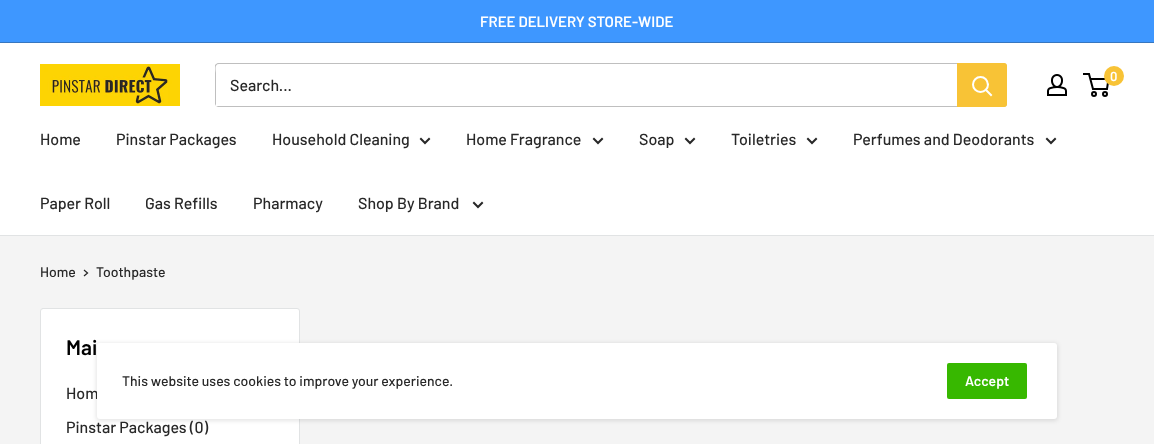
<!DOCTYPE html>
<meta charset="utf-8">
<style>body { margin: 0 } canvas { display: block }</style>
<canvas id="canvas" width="1154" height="444"></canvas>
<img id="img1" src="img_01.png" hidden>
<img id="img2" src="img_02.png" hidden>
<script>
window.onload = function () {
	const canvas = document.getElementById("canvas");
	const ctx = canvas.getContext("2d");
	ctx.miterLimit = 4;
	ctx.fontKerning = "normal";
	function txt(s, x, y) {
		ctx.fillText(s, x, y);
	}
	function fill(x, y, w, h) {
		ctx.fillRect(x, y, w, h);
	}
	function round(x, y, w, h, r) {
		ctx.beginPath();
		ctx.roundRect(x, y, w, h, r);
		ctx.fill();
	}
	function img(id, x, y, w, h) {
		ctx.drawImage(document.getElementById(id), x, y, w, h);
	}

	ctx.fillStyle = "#F4F4F4";
	fill(0, 0, 1154, 444);
	ctx.fillStyle = "#3E97FF";
	fill(0, 0, 1154, 42);
	ctx.fillStyle = "#3776BF";
	fill(0, 42, 1154, 1);
	ctx.fillStyle = "#FFFFFF";
	fill(0, 43, 1154, 192);
	img("img1", 40, 64, 140, 42);
	img("img2", 1047, 74, 20, 22);
	ctx.beginPath();
	ctx.arc(1094, 94, 2, 0, Math.PI * 2);
	ctx.strokeStyle = "#000000";
	ctx.lineWidth = 2;
	ctx.stroke();
	ctx.beginPath();
	ctx.arc(1105, 94, 2, 0, Math.PI * 2);
	ctx.stroke();
	ctx.beginPath();
	ctx.moveTo(1090.5, 79);
	ctx.lineTo(1108.5, 79);
	ctx.lineTo(1107, 89);
	ctx.lineTo(1093, 89);
	ctx.lineTo(1089, 74);
	ctx.lineTo(1083, 74);
	ctx.stroke();
	ctx.fillStyle = "#F8C336";
	ctx.beginPath();
	ctx.arc(1114, 76, 10, 0, Math.PI * 2);
	ctx.fill();
	ctx.fillStyle = "#BFBFBF";
	ctx.beginPath();
	ctx.moveTo(216, 106);
	ctx.lineTo(218, 107);
	ctx.lineTo(1004, 107);
	ctx.bezierCurveTo(1005, 107, 1006, 106, 1007, 105);
	ctx.lineTo(1007, 66);
	ctx.lineTo(1006, 64);
	ctx.lineTo(1006, 97);
	ctx.bezierCurveTo(1006, 99, 1008, 106, 1003, 106);
	ctx.closePath();
	ctx.fill();
	ctx.beginPath();
	ctx.moveTo(219, 64);
	ctx.lineTo(1006, 64);
	ctx.lineTo(1004, 63);
	ctx.lineTo(218, 63);
	ctx.bezierCurveTo(217, 63, 216, 64, 215, 65);
	ctx.lineTo(215, 104);
	ctx.lineTo(216, 106);
	ctx.lineTo(216, 73);
	ctx.bezierCurveTo(216, 71, 214, 64, 219, 64);
	ctx.closePath();
	ctx.fill();
	ctx.fillStyle = "#F8C336";
	ctx.beginPath();
	ctx.roundRect(957, 63, 50, 44, [0, 3, 3, 0]);
	ctx.fill();
	ctx.beginPath();
	ctx.moveTo(991, 95);
	ctx.lineTo(986, 90);
	ctx.strokeStyle = "#FFFFFF";
	ctx.lineCap = "square";
	ctx.stroke();
	ctx.beginPath();
	ctx.arc(980.5, 84.5, 7.5, 0, Math.PI * 2);
	ctx.stroke();
	ctx.fillStyle = "#E1E3E4";
	fill(0, 235, 1154, 1);
	ctx.beginPath();
	ctx.moveTo(429, 139);
	ctx.lineTo(425, 143);
	ctx.lineTo(421, 139);
	ctx.strokeStyle = "#282828";
	ctx.stroke();
	ctx.beginPath();
	ctx.moveTo(602, 139);
	ctx.lineTo(598, 143);
	ctx.lineTo(594, 139);
	ctx.stroke();
	ctx.beginPath();
	ctx.moveTo(694, 139);
	ctx.lineTo(690, 143);
	ctx.lineTo(686, 139);
	ctx.stroke();
	ctx.beginPath();
	ctx.moveTo(816, 139);
	ctx.lineTo(812, 143);
	ctx.lineTo(808, 139);
	ctx.stroke();
	ctx.beginPath();
	ctx.moveTo(1055, 139);
	ctx.lineTo(1051, 143);
	ctx.lineTo(1047, 139);
	ctx.stroke();
	ctx.beginPath();
	ctx.moveTo(482, 203);
	ctx.lineTo(478, 207);
	ctx.lineTo(474, 203);
	ctx.stroke();
	ctx.beginPath();
	ctx.moveTo(84.5, 270.5);
	ctx.lineTo(87.5, 273);
	ctx.lineTo(84.5, 275.5);
	ctx.lineWidth = 1.3;
	ctx.stroke();
	ctx.fillStyle = "#FFFFFF";
	ctx.beginPath();
	ctx.roundRect(40.5, 308.5, 259, 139, 2.5);
	ctx.fill();
	ctx.strokeStyle = "#E1E3E4";
	ctx.lineWidth = 1;
	ctx.stroke();
	ctx.fillStyle = "rgba(0, 0, 0, 0.1)";
	ctx.filter = "blur(2px)";
	ctx.beginPath();
	ctx.roundRect(96, 343, 962, 78, 4);
	ctx.fill();
	ctx.filter = "none";
	ctx.font = "600 15px Barlow";
	ctx.fillStyle = "#FFFFFF";
	txt("FREE DELIVERY STORE-WIDE", 480, 27);
	ctx.font = "600 13px Barlow";
	txt("0", 1110, 81);
	ctx.font = "500 16px Barlow";
	ctx.fillStyle = "#282828";
	txt("Search...", 230, 91);
	txt("Home", 40, 145);
	txt("Pinstar Packages", 116, 145);
	txt("Household Cleaning", 272, 145);
	txt("Home Fragrance", 466, 145);
	txt("Soap", 639, 145);
	txt("Toiletries", 731, 145);
	txt("Perfumes and Deodorants", 853, 145);
	txt("Paper Roll", 40, 209);
	txt("Gas Refills", 145, 209);
	txt("Pharmacy", 253, 209);
	txt("Shop By Brand", 358, 209);
	ctx.font = "500 14px Barlow";
	txt("Home", 40, 277);
	txt("Toothpaste", 96, 277);
	ctx.font = "600 21px Barlow";
	ctx.fillStyle = "#000000";
	txt("Mai", 66, 355);
	ctx.font = "500 16px Barlow";
	ctx.fillStyle = "#282828";
	txt("Hom", 66, 399);
	txt("Pinstar Packages (0)", 66, 433);
	ctx.fillStyle = "#FFFFFF";
	round(97, 343, 960, 76, 3);
	ctx.font = "500 14px Barlow";
	ctx.fillStyle = "#282828";
	txt("This website uses cookies to improve your experience.", 122, 386);
	ctx.fillStyle = "#37B800";
	round(947, 363, 80, 36, 2);
	ctx.font = "600 14px Barlow";
	ctx.fillStyle = "#FFFFFF";
	txt("Accept", 965, 386);
};
</script>
